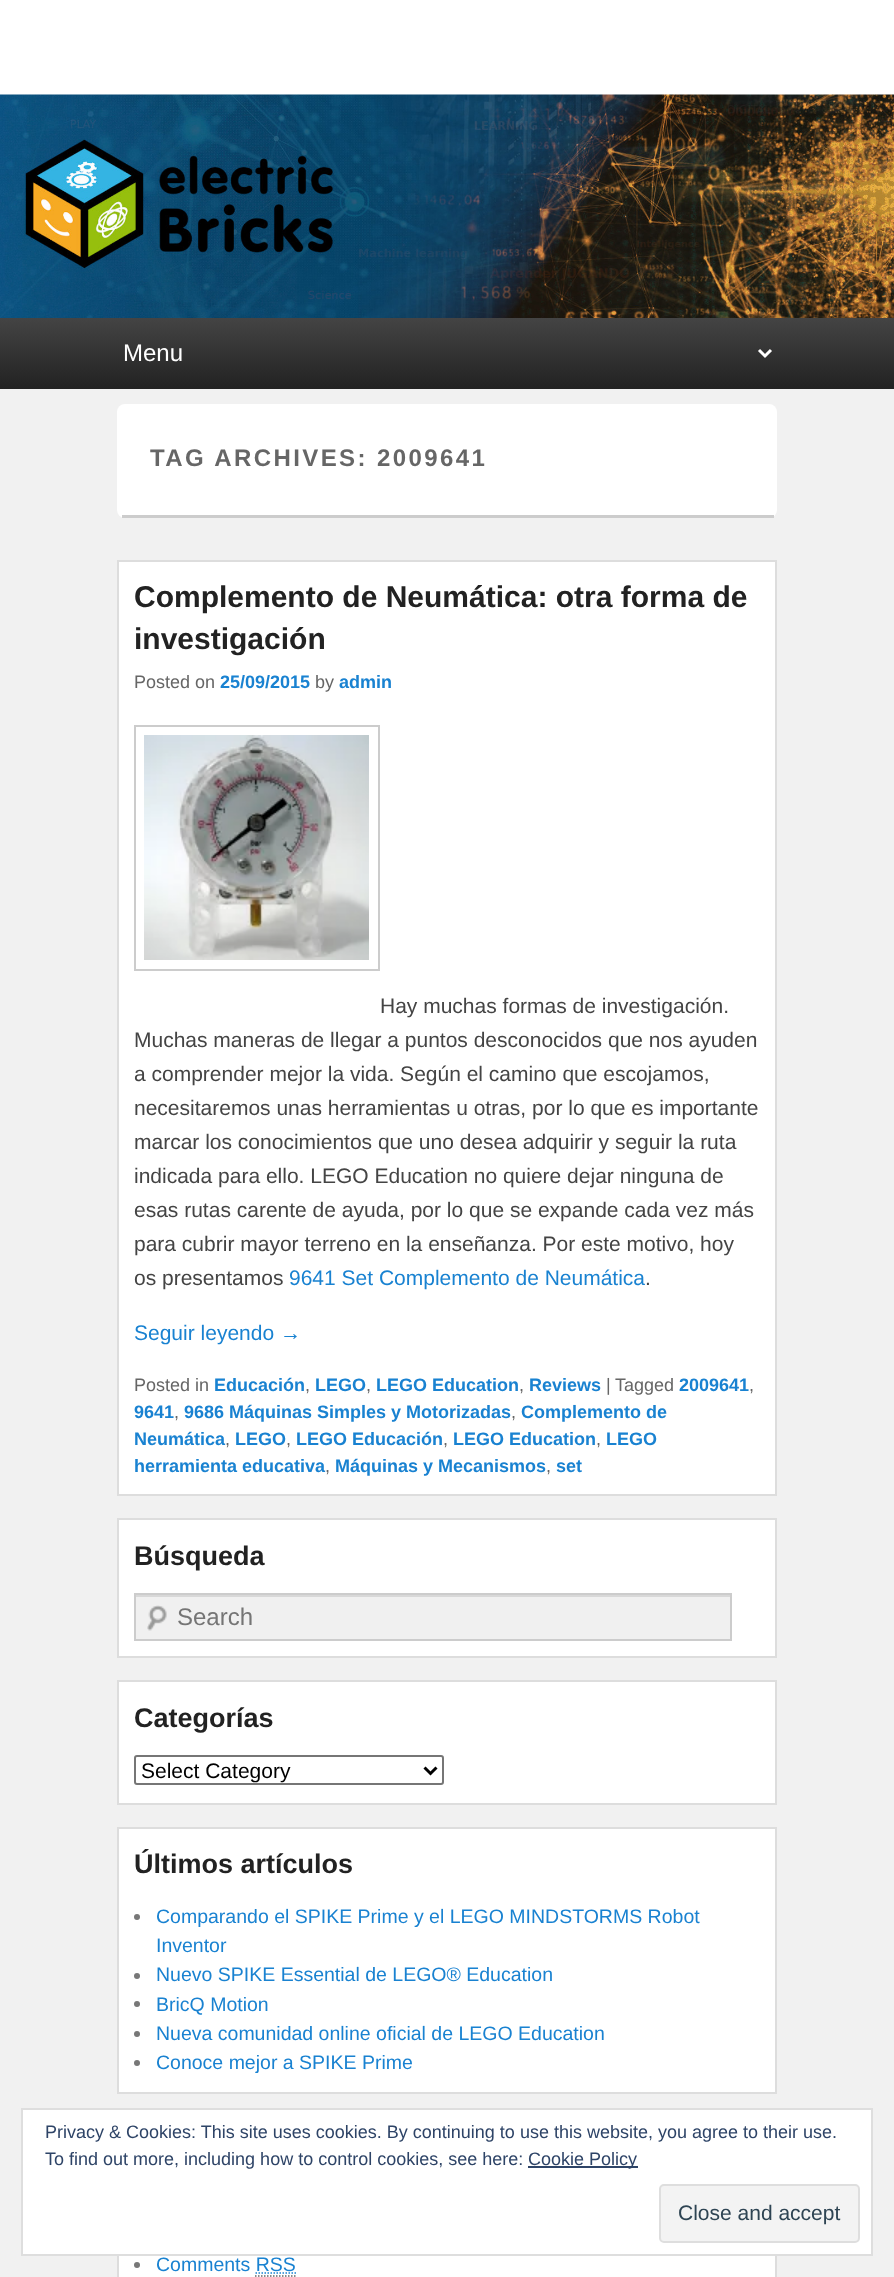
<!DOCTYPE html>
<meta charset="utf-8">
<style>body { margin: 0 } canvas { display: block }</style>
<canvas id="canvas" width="894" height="2277"></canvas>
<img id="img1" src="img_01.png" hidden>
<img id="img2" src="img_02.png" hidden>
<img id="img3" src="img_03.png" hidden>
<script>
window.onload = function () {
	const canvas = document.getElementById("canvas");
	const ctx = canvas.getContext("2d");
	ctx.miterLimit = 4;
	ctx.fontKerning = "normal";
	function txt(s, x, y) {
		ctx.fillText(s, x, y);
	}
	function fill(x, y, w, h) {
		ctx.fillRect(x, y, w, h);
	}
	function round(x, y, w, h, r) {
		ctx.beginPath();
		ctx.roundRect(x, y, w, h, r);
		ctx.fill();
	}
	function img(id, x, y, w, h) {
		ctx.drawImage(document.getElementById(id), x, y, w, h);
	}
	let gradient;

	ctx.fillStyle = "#F1F1F1";
	fill(0, 0, 894, 2277);
	ctx.fillStyle = "#FFFFFF";
	fill(0, 0, 894, 95);
	img("img1", 0, 94, 894, 224);
	gradient = ctx.createLinearGradient(447, 318, 447, 389);
	gradient.addColorStop(0, "#444444");
	gradient.addColorStop(1, "#222222");
	ctx.fillStyle = gradient;
	fill(0, 318, 894, 71);
	ctx.beginPath();
	ctx.moveTo(759, 350);
	ctx.lineTo(765, 356);
	ctx.lineTo(771, 350);
	ctx.strokeStyle = "#FFFFFF";
	ctx.lineWidth = 3;
	ctx.stroke();
	ctx.fillStyle = "#FFFFFF";
	round(117, 404, 660, 114, 8);
	ctx.fillStyle = "#CCCCCC";
	fill(122, 515, 652, 3);
	ctx.fillStyle = "#FFFFFF";
	ctx.beginPath();
	ctx.rect(118, 561, 658, 934);
	ctx.fill();
	ctx.strokeStyle = "#DDDDDD";
	ctx.lineWidth = 2;
	ctx.stroke();
	ctx.strokeStyle = "#CCCCCC";
	ctx.strokeRect(135, 726, 244, 244);
	img("img2", 144, 735, 225, 225);
	ctx.beginPath();
	ctx.rect(118, 1519, 658, 138);
	ctx.fill();
	ctx.strokeStyle = "#DDDDDD";
	ctx.stroke();
	ctx.fillStyle = "#F0F0F0";
	fill(136, 1597, 594, 42);
	img("img3", 147, 1605, 20, 26);
	ctx.fillStyle = "#D8D8D8";
	fill(135, 1595, 596, 2);
	ctx.strokeStyle = "#CCCCCC";
	ctx.strokeRect(135, 1594, 596, 46);
	ctx.fillStyle = "#FFFFFF";
	ctx.beginPath();
	ctx.rect(118, 1681, 658, 123);
	ctx.fill();
	ctx.strokeStyle = "#DDDDDD";
	ctx.stroke();
	ctx.beginPath();
	ctx.roundRect(135, 1756, 308, 28, 2);
	ctx.strokeStyle = "#767676";
	ctx.stroke();
	ctx.beginPath();
	ctx.moveTo(424.5, 1767.5);
	ctx.lineTo(430.5, 1773.5);
	ctx.lineTo(436.5, 1767.5);
	ctx.strokeStyle = "#000000";
	ctx.lineWidth = 3;
	ctx.stroke();
	ctx.beginPath();
	ctx.rect(118, 1828, 658, 265);
	ctx.fill();
	ctx.strokeStyle = "#DDDDDD";
	ctx.lineWidth = 2;
	ctx.stroke();
	ctx.fillStyle = "#777777";
	ctx.beginPath();
	ctx.arc(137, 1917, 3, 0, Math.PI * 2);
	ctx.fill();
	ctx.beginPath();
	ctx.arc(137, 1976, 3, 0, Math.PI * 2);
	ctx.fill();
	ctx.beginPath();
	ctx.arc(137, 2004, 3, 0, Math.PI * 2);
	ctx.fill();
	ctx.beginPath();
	ctx.arc(137, 2034, 3, 0, Math.PI * 2);
	ctx.fill();
	ctx.beginPath();
	ctx.arc(137, 2063, 3, 0, Math.PI * 2);
	ctx.fill();
	ctx.fillStyle = "#FFFFFF";
	fill(119, 2256, 656, 21);
	ctx.strokeRect(118, 2118, 658, 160);
	ctx.fillStyle = "#777777";
	ctx.beginPath();
	ctx.arc(137, 2265, 3, 0, Math.PI * 2);
	ctx.fill();
	ctx.beginPath();
	ctx.moveTo(255, 2276);
	ctx.lineTo(295.5, 2276);
	ctx.strokeStyle = "#666666";
	ctx.lineWidth = 1.5;
	ctx.setLineDash([1.5, 1.5]);
	ctx.stroke();
	ctx.beginPath();
	ctx.moveTo(255.5, 2273);
	ctx.lineTo(296, 2273);
	ctx.strokeStyle = "#1982D1";
	ctx.stroke();
	ctx.fillStyle = "#FFFFFF";
	ctx.beginPath();
	ctx.rect(22, 2109, 850, 146);
	ctx.fill();
	ctx.strokeStyle = "#DEDEDE";
	ctx.lineWidth = 2;
	ctx.setLineDash([]);
	ctx.stroke();
	ctx.fillStyle = "#2E4467";
	fill(528, 2166, 110, 2);
	ctx.fillStyle = "#F3F3F3";
	ctx.beginPath();
	ctx.roundRect(660, 2185, 199, 57, 4);
	ctx.fill();
	ctx.stroke();
	ctx.font = "24px Liberation Sans";
	ctx.fillStyle = "#FFFFFF";
	txt("Menu", 123, 361);
	ctx.letterSpacing = "2.4px";
	ctx.font = "bold 24px Liberation Sans";
	ctx.fillStyle = "#666666";
	txt("TAG ARCHIVES: 2009641", 150, 466);
	ctx.letterSpacing = "0px";
	ctx.font = "bold 30px Liberation Sans";
	ctx.fillStyle = "#222222";
	txt("Complemento de Neumática: otra forma de", 134, 607);
	txt("investigación", 134, 649);
	ctx.font = "18px Liberation Sans";
	ctx.fillStyle = "#666666";
	txt("Posted on", 134, 688);
	ctx.font = "bold 18px Liberation Sans";
	ctx.fillStyle = "#1982D1";
	txt("25/09/2015", 220, 688);
	ctx.font = "18px Liberation Sans";
	ctx.fillStyle = "#666666";
	txt("by", 315, 688);
	ctx.font = "bold 18px Liberation Sans";
	ctx.fillStyle = "#1982D1";
	txt("admin", 339, 688);
	ctx.font = "21px Liberation Sans";
	ctx.fillStyle = "#444444";
	txt("Hay muchas formas de investigación.", 380, 1013);
	txt("Muchas maneras de llegar a puntos desconocidos que nos ayuden", 134, 1047);
	txt("a comprender mejor la vida. Según el camino que escojamos,", 134, 1081);
	txt("necesitaremos unas herramientas u otras, por lo que es importante", 134, 1115);
	txt("marcar los conocimientos que uno desea adquirir y seguir la ruta", 134, 1149);
	txt("indicada para ello. LEGO Education no quiere dejar ninguna de", 134, 1183);
	txt("esas rutas carente de ayuda, por lo que se expande cada vez más", 134, 1217);
	txt("para cubrir mayor terreno en la enseñanza. Por este motivo, hoy", 134, 1251);
	txt("os presentamos", 134, 1285);
	ctx.fillStyle = "#1982D1";
	txt("9641 Set Complemento de Neumática", 289, 1285);
	ctx.fillStyle = "#444444";
	txt(".", 645, 1285);
	ctx.fillStyle = "#1982D1";
	txt("Seguir leyendo →", 134, 1340);
	ctx.font = "18px Liberation Sans";
	ctx.fillStyle = "#666666";
	txt("Posted in", 134, 1391);
	ctx.font = "bold 18px Liberation Sans";
	ctx.fillStyle = "#1982D1";
	txt("Educación", 214, 1391);
	ctx.font = "18px Liberation Sans";
	ctx.fillStyle = "#666666";
	txt(",", 305, 1391);
	ctx.font = "bold 18px Liberation Sans";
	ctx.fillStyle = "#1982D1";
	txt("LEGO", 315, 1391);
	ctx.font = "18px Liberation Sans";
	ctx.fillStyle = "#666666";
	txt(",", 366, 1391);
	ctx.font = "bold 18px Liberation Sans";
	ctx.fillStyle = "#1982D1";
	txt("LEGO Education", 376, 1391);
	ctx.font = "18px Liberation Sans";
	ctx.fillStyle = "#666666";
	txt(",", 519, 1391);
	ctx.font = "bold 18px Liberation Sans";
	ctx.fillStyle = "#1982D1";
	txt("Reviews", 529, 1391);
	ctx.font = "18px Liberation Sans";
	ctx.fillStyle = "#666666";
	txt("|", 606, 1391);
	txt("Tagged", 615, 1391);
	ctx.font = "bold 18px Liberation Sans";
	ctx.fillStyle = "#1982D1";
	txt("2009641", 679, 1391);
	ctx.font = "18px Liberation Sans";
	ctx.fillStyle = "#666666";
	txt(",", 749, 1391);
	ctx.font = "bold 18px Liberation Sans";
	ctx.fillStyle = "#1982D1";
	txt("9641", 134, 1418);
	ctx.font = "18px Liberation Sans";
	ctx.fillStyle = "#666666";
	txt(",", 174, 1418);
	ctx.font = "bold 18px Liberation Sans";
	ctx.fillStyle = "#1982D1";
	txt("9686 Máquinas Simples y Motorizadas", 184, 1418);
	ctx.font = "18px Liberation Sans";
	ctx.fillStyle = "#666666";
	txt(",", 511, 1418);
	ctx.font = "bold 18px Liberation Sans";
	ctx.fillStyle = "#1982D1";
	txt("Complemento de", 521, 1418);
	txt("Neumática", 134, 1445);
	ctx.font = "18px Liberation Sans";
	ctx.fillStyle = "#666666";
	txt(",", 225, 1445);
	ctx.font = "bold 18px Liberation Sans";
	ctx.fillStyle = "#1982D1";
	txt("LEGO", 235, 1445);
	ctx.font = "18px Liberation Sans";
	ctx.fillStyle = "#666666";
	txt(",", 286, 1445);
	ctx.font = "bold 18px Liberation Sans";
	ctx.fillStyle = "#1982D1";
	txt("LEGO Educación", 296, 1445);
	ctx.font = "18px Liberation Sans";
	ctx.fillStyle = "#666666";
	txt(",", 443, 1445);
	ctx.font = "bold 18px Liberation Sans";
	ctx.fillStyle = "#1982D1";
	txt("LEGO Education", 453, 1445);
	ctx.font = "18px Liberation Sans";
	ctx.fillStyle = "#666666";
	txt(",", 596, 1445);
	ctx.font = "bold 18px Liberation Sans";
	ctx.fillStyle = "#1982D1";
	txt("LEGO", 606, 1445);
	txt("herramienta educativa", 134, 1472);
	ctx.font = "18px Liberation Sans";
	ctx.fillStyle = "#666666";
	txt(",", 325, 1472);
	ctx.font = "bold 18px Liberation Sans";
	ctx.fillStyle = "#1982D1";
	txt("Máquinas y Mecanismos", 335, 1472);
	ctx.font = "18px Liberation Sans";
	ctx.fillStyle = "#666666";
	txt(",", 546, 1472);
	ctx.font = "bold 18px Liberation Sans";
	ctx.fillStyle = "#1982D1";
	txt("set", 556, 1472);
	ctx.font = "bold 27px Liberation Sans";
	ctx.fillStyle = "#222222";
	txt("Búsqueda", 134, 1565);
	ctx.font = "24px Liberation Sans";
	ctx.fillStyle = "#757575";
	txt("Search", 177, 1625);
	ctx.font = "bold 27px Liberation Sans";
	ctx.fillStyle = "#222222";
	txt("Categorías", 134, 1727);
	ctx.font = "21px Liberation Sans";
	ctx.fillStyle = "#000000";
	txt("Select Category", 141, 1778);
	ctx.font = "bold 27px Liberation Sans";
	ctx.fillStyle = "#222222";
	txt("Últimos artículos", 134, 1873);
	ctx.font = "19.5px Liberation Sans";
	ctx.fillStyle = "#1982D1";
	txt("Comparando el SPIKE Prime y el LEGO MINDSTORMS Robot", 156, 1923);
	txt("Inventor", 156, 1952);
	txt("Nuevo SPIKE Essential de LEGO® Education", 156, 1981);
	txt("BricQ Motion", 156, 2011);
	txt("Nueva comunidad online oficial de LEGO Education", 156, 2040);
	txt("Conoce mejor a SPIKE Prime", 156, 2069);
	txt("Comments RSS", 156, 2271);
	ctx.font = "18px Liberation Sans";
	ctx.fillStyle = "#2E4467";
	txt("Privacy & Cookies: This site uses cookies. By continuing to use this website, you agree to their use.", 45, 2138);
	txt("To find out more, including how to control cookies, see here:", 45, 2165);
	txt("Cookie Policy", 528, 2165);
	ctx.font = "21px Liberation Sans";
	ctx.fillStyle = "#2E4453";
	txt("Close and accept", 678, 2220);
};
</script>
